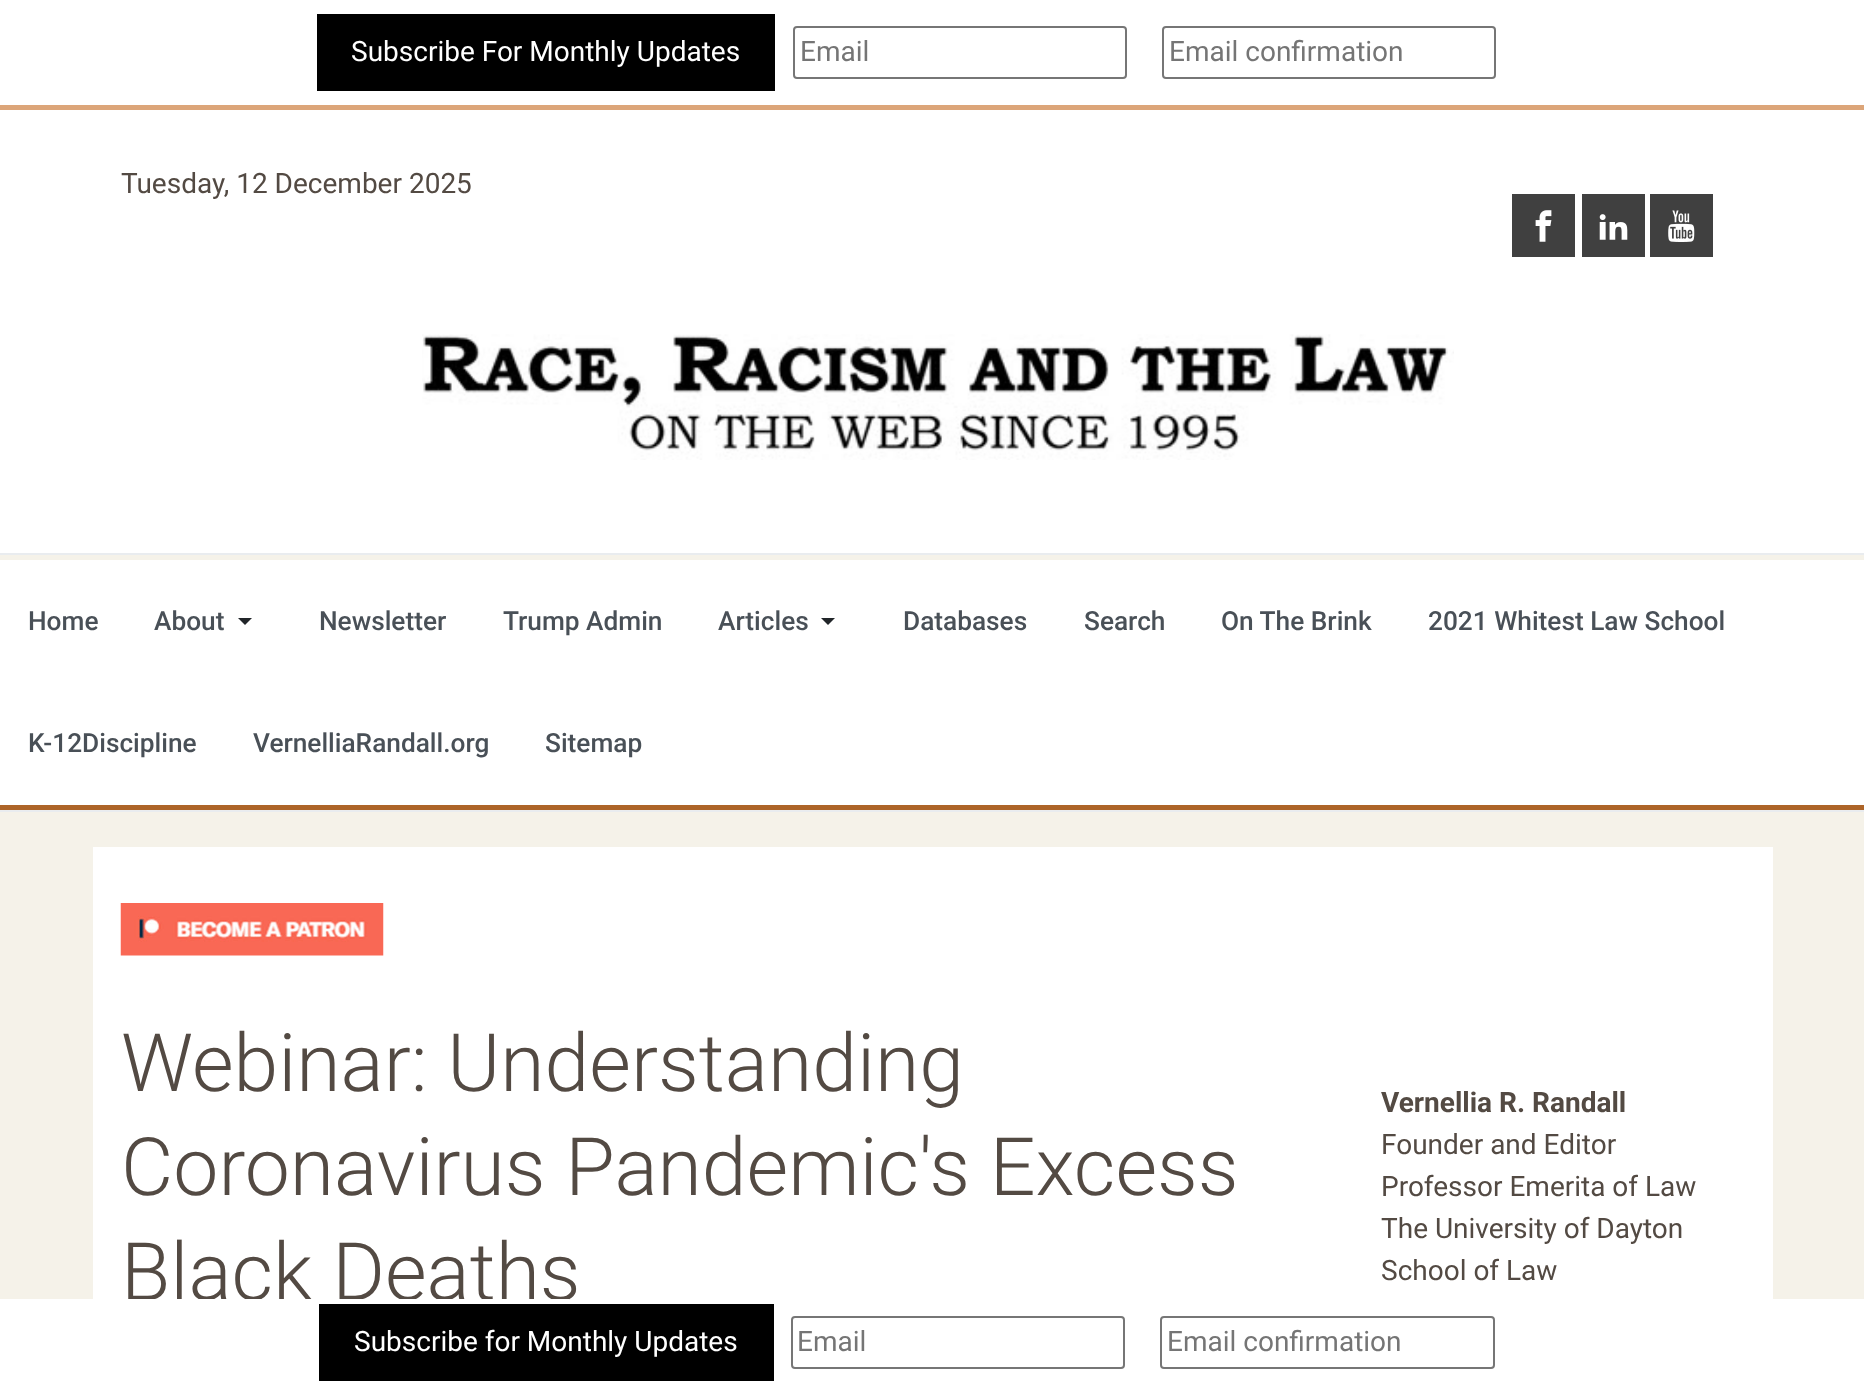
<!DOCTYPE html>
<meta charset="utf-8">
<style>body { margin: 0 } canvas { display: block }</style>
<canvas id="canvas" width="1864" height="1386"></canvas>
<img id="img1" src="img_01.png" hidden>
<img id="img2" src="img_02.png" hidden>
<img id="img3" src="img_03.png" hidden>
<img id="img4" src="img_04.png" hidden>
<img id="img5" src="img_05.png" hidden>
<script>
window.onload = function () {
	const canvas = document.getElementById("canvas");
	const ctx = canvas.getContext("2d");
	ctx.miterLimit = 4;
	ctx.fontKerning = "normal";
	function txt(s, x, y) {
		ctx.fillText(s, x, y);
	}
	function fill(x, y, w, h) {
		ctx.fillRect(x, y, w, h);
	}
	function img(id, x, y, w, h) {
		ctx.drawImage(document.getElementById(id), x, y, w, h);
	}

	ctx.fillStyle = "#FFFFFF";
	fill(0, 0, 1864, 1386);
	ctx.fillStyle = "#DCA579";
	fill(0, 105, 1864, 5);
	ctx.fillStyle = "#000000";
	fill(317, 14, 458, 77);
	ctx.beginPath();
	ctx.roundRect(794, 27, 332, 51, 3);
	ctx.strokeStyle = "#767676";
	ctx.lineWidth = 2;
	ctx.stroke();
	ctx.beginPath();
	ctx.roundRect(1163, 27, 332, 51, 3);
	ctx.stroke();
	ctx.fillStyle = "#F5F2E9";
	fill(0, 812, 1864, 487);
	ctx.fillStyle = "#404040";
	fill(1512, 194, 63, 63);
	img("img1", 1535, 210, 17, 32);
	fill(1582, 194, 63, 63);
	img("img2", 1599, 214, 29, 26);
	fill(1650, 194, 63, 63);
	img("img3", 1668, 210, 27, 32);
	img("img4", 422, 334, 1032, 126);
	ctx.fillStyle = "#E9ECEF";
	fill(0, 810, 1864, 2);
	fill(0, 553, 1864, 2);
	ctx.fillStyle = "#F5F2E9";
	fill(0, 555, 1864, 5);
	ctx.fillStyle = "#AD6428";
	fill(0, 805, 1864, 5);
	ctx.fillStyle = "#212529";
	ctx.beginPath();
	ctx.moveTo(238, 618);
	ctx.lineTo(252, 618);
	ctx.lineTo(245, 625);
	ctx.closePath();
	ctx.fill();
	ctx.beginPath();
	ctx.moveTo(821, 618);
	ctx.lineTo(835, 618);
	ctx.lineTo(828, 625);
	ctx.closePath();
	ctx.fill();
	ctx.fillStyle = "#FFFFFF";
	fill(93, 847, 1680, 452);
	img("img5", 120, 903, 264, 53);
	ctx.fillStyle = "#000000";
	fill(319, 1304, 455, 77);
	ctx.beginPath();
	ctx.roundRect(792, 1317, 332, 51, 3);
	ctx.stroke();
	ctx.beginPath();
	ctx.roundRect(1161, 1317, 333, 51, 3);
	ctx.stroke();
	ctx.font = "28px Roboto";
	ctx.fillStyle = "#FFFFFF";
	txt("Subscribe For Monthly Updates", 351, 61);
	ctx.fillStyle = "#757575";
	txt("Email", 800, 61);
	txt("Email confirmation", 1169, 61);
	ctx.fillStyle = "#534A43";
	txt("Tuesday, 12 December 2025", 121, 193);
	ctx.font = "500 26.25px Roboto";
	ctx.fillStyle = "#495057";
	txt("Home", 28, 630);
	txt("About", 154, 630);
	txt("Newsletter", 319, 630);
	txt("Trump Admin", 503, 630);
	txt("Articles", 718, 630);
	txt("Databases", 903, 630);
	txt("Search", 1084, 630);
	txt("On The Brink", 1221, 630);
	txt("2021 Whitest Law School", 1428, 630);
	txt("K-12Discipline", 28, 752);
	txt("VernelliaRandall.org", 253, 752);
	txt("Sitemap", 545, 752);
	ctx.font = "300 80.5px Roboto";
	ctx.fillStyle = "#534A43";
	txt("Webinar: Understanding", 121, 1091);
	txt("Coronavirus Pandemic's Excess", 121, 1195);
	txt("Black Deaths", 121, 1300);
	ctx.font = "bold 28px Roboto";
	txt("Vernellia R. Randall", 1381, 1112);
	ctx.font = "28px Roboto";
	txt("Founder and Editor", 1381, 1154);
	txt("Professor Emerita of Law", 1381, 1196);
	txt("The University of Dayton", 1381, 1238);
	txt("School of Law", 1381, 1280);
	ctx.fillStyle = "#FFFFFF";
	fill(128, 1299, 441, 2);
	txt("Subscribe for Monthly Updates", 354, 1351);
	ctx.fillStyle = "#757575";
	txt("Email", 797, 1351);
	txt("Email confirmation", 1167, 1351);
};
</script>
